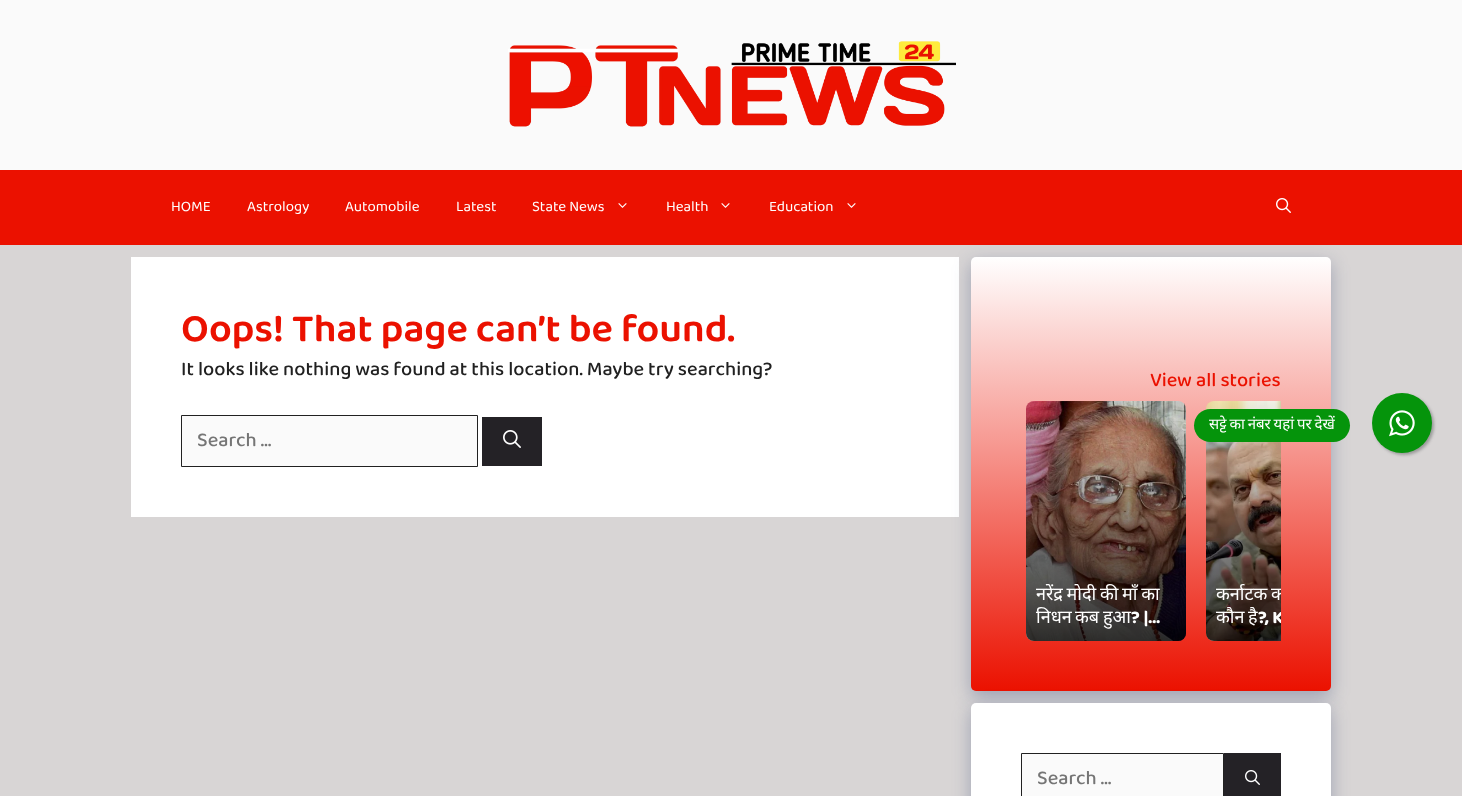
<!DOCTYPE html>
<meta charset="utf-8">
<style>body { margin: 0 } canvas { display: block }</style>
<canvas id="canvas" width="1462" height="796"></canvas>
<img id="img1" src="img_01.png" hidden>
<img id="img2" src="img_02.png" hidden>
<img id="img3" src="img_03.png" hidden>
<img id="img4" src="img_04.png" hidden>
<img id="img5" src="img_05.png" hidden>
<img id="img6" src="img_06.png" hidden>
<img id="img7" src="img_07.png" hidden>
<img id="img8" src="img_08.png" hidden>
<script>
window.onload = function () {
	const canvas = document.getElementById("canvas");
	const ctx = canvas.getContext("2d");
	ctx.miterLimit = 4;
	ctx.fontKerning = "normal";
	function txt(s, x, y) {
		ctx.fillText(s, x, y);
	}
	function fill(x, y, w, h) {
		ctx.fillRect(x, y, w, h);
	}
	function round(x, y, w, h, r) {
		ctx.beginPath();
		ctx.roundRect(x, y, w, h, r);
		ctx.fill();
	}
	function img(id, x, y, w, h) {
		ctx.drawImage(document.getElementById(id), x, y, w, h);
	}
	let gradient;

	ctx.fillStyle = "#D8D5D5";
	fill(0, 0, 1462, 796);
	ctx.fillStyle = "#FAFAFA";
	fill(0, 0, 1462, 170);
	img("img1", 508, 41, 448, 86);
	ctx.fillStyle = "#EB1100";
	fill(0, 170, 1462, 75);
	img("img2", 618, 203, 9, 5);
	img("img2", 721, 203, 9, 5);
	img("img2", 847, 203, 9, 5);
	img("img3", 1276, 198, 15, 15);
	ctx.fillStyle = "#FFFFFF";
	fill(131, 257, 828, 260);
	ctx.fillStyle = "#FAFAFA";
	ctx.beginPath();
	ctx.rect(181.5, 415.5, 296, 51);
	ctx.fill();
	ctx.strokeStyle = "#212121";
	ctx.stroke();
	ctx.fillStyle = "#242226";
	fill(482, 417, 60, 49);
	img("img4", 503, 430, 18, 18);
	ctx.fillStyle = "rgba(23, 43, 99, 0.3)";
	ctx.filter = "blur(9px)";
	ctx.beginPath();
	ctx.roundRect(971, 263, 360, 434, 5);
	ctx.fill();
	ctx.filter = "none";
	gradient = ctx.createLinearGradient(1151, 257, 1151, 691);
	gradient.addColorStop(0, "#FFFFFF");
	gradient.addColorStop(1, "#EB1100");
	ctx.fillStyle = gradient;
	round(971, 257, 360, 434, 5);
	img("img5", 1026, 401, 160, 240);
	gradient = ctx.createLinearGradient(1106, 401, 1106, 641);
	gradient.addColorStop(0, "rgba(0, 0, 0, 0)");
	gradient.addColorStop(1, "rgba(0, 0, 0, 0.8)");
	ctx.fillStyle = gradient;
	round(1026, 401, 160, 240, 8);
	img("img6", 1206, 401, 75, 240);
	gradient = ctx.createLinearGradient(1286, 401, 1286, 641);
	gradient.addColorStop(0, "rgba(0, 0, 0, 0)");
	gradient.addColorStop(1, "rgba(0, 0, 0, 0.8)");
	ctx.fillStyle = gradient;
	ctx.beginPath();
	ctx.roundRect(1206, 401, 75, 240, [8, 0, 0, 8]);
	ctx.fill();
	ctx.fillStyle = "rgba(23, 43, 99, 0.3)";
	ctx.filter = "blur(9px)";
	ctx.beginPath();
	ctx.roundRect(971, 709, 360, 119, 5);
	ctx.fill();
	ctx.filter = "none";
	ctx.fillStyle = "#FFFFFF";
	round(971, 703, 360, 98, 5);
	ctx.fillStyle = "#FAFAFA";
	ctx.beginPath();
	ctx.rect(1021.5, 753.5, 202, 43);
	ctx.fill();
	ctx.stroke();
	ctx.fillStyle = "#242226";
	fill(1224, 753, 57, 43);
	img("img7", 1245, 770, 15, 15);
	ctx.fillStyle = "#999999";
	ctx.filter = "blur(1.5px)";
	ctx.beginPath();
	ctx.roundRect(1374, 395, 60, 60, 30);
	ctx.fill();
	ctx.filter = "none";
	ctx.fillStyle = "#05940B";
	ctx.beginPath();
	ctx.arc(1402, 423, 30, 0, Math.PI * 2);
	ctx.fill();
	round(1194, 409, 156, 33, 16.5);
	img("img8", 1389, 410, 26, 27);
	ctx.font = "15px 'Baloo Bhai 2'";
	ctx.fillStyle = "#FFFFFF";
	txt("HOME", 171, 211);
	txt("Astrology", 247, 211);
	txt("Automobile", 345, 211);
	txt("Latest", 456, 211);
	txt("State News", 532, 211);
	txt("Health", 666, 211);
	txt("Education", 769, 211);
	ctx.font = "600 40px 'Baloo Bhai 2'";
	ctx.fillStyle = "#EB1100";
	txt("Oops! That page can’t be found.", 181, 341);
	ctx.font = "500 20px 'Baloo Bhai 2'";
	ctx.fillStyle = "#212121";
	txt("It looks like nothing was found at this location. Maybe try searching?", 181, 375);
	ctx.fillStyle = "#757575";
	txt("Search …", 197, 446);
	ctx.fillStyle = "#EB1100";
	txt("View all stories", 1150, 386);
	ctx.save();
	ctx.beginPath();
	ctx.rect(1036, 584, 140, 47);
	ctx.clip();
	ctx.wordSpacing = "-1px";
	ctx.font = "18px Noto Sans";
	ctx.fillStyle = "#FFFFFF";
	txt("नरेंद्र मोदी की माँ का", 1036, 600);
	ctx.restore();
	ctx.font = "18px Noto Sans";
	ctx.fillStyle = "#FFFFFF";
	txt("निधन", 1036, 623);
	txt("कब", 1075, 623);
	txt("हुआ", 1103, 623);
	ctx.font = "bold 18px 'Baloo Bhai 2'";
	txt("? |…", 1131, 623);
	ctx.save();
	ctx.beginPath();
	ctx.rect(1216, 584, 65, 47);
	ctx.clip();
	ctx.wordSpacing = "-1px";
	ctx.font = "18px Noto Sans";
	txt("कर्नाटक क", 1216, 600);
	ctx.wordSpacing = "0px";
	txt("कौन", 1216, 623);
	ctx.restore();
	ctx.font = "18px Noto Sans";
	txt("है", 1248, 623);
	ctx.save();
	ctx.beginPath();
	ctx.rect(1216, 584, 65, 47);
	ctx.clip();
	ctx.font = "bold 18px 'Baloo Bhai 2'";
	txt("?, K", 1258, 623);
	ctx.restore();
	ctx.font = "500 20px 'Baloo Bhai 2'";
	ctx.fillStyle = "#757575";
	txt("Search …", 1037, 784);
	ctx.wordSpacing = "-1px";
	ctx.font = "15px Noto Sans";
	ctx.fillStyle = "#FFFFFF";
	txt("सट्टे का नंबर यहां पर देखें", 1209, 429);
};
</script>
